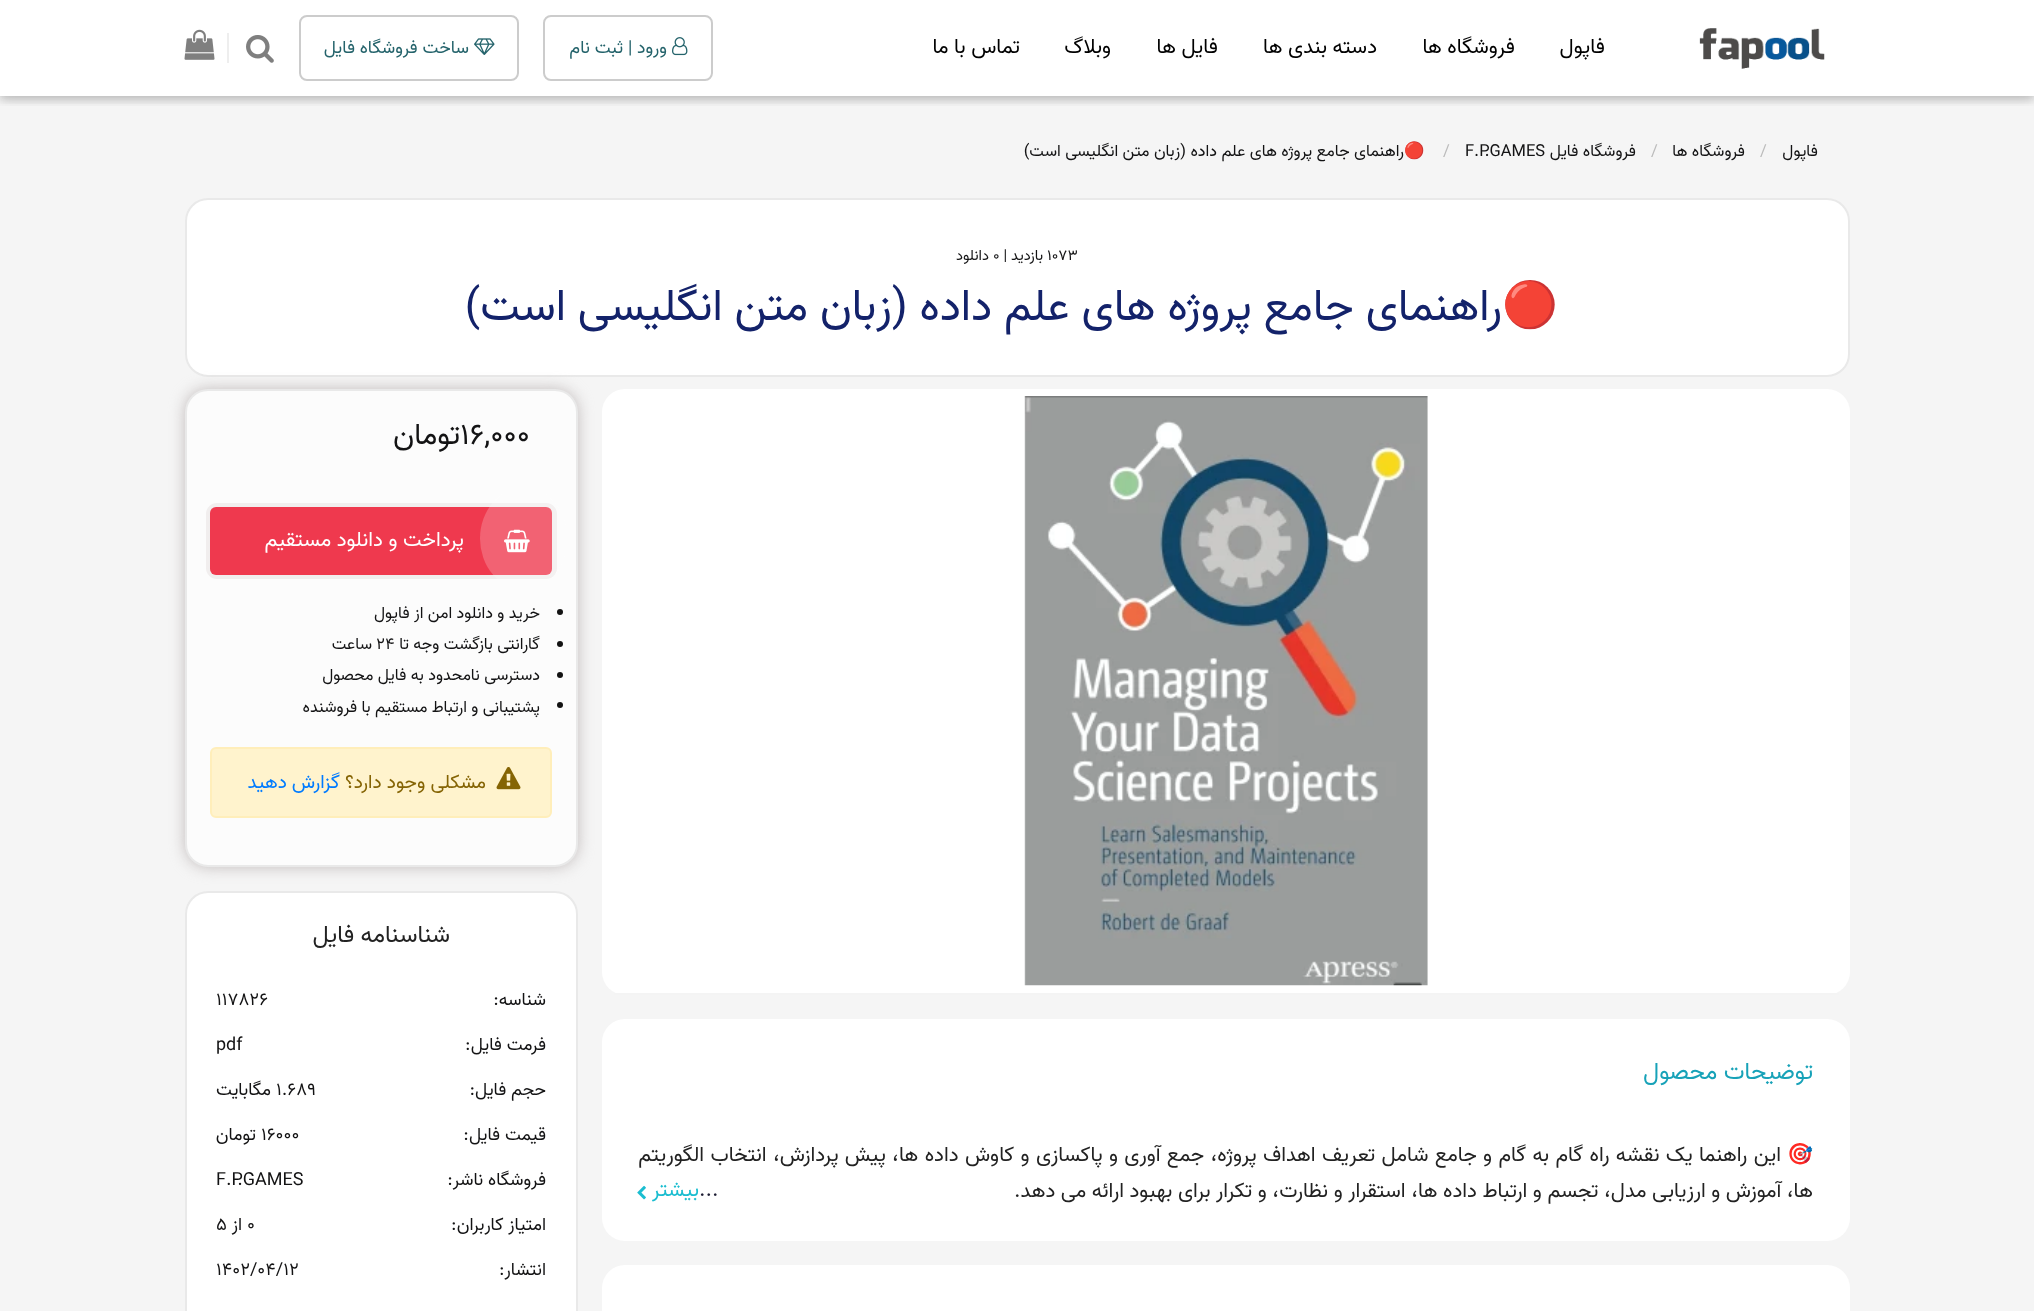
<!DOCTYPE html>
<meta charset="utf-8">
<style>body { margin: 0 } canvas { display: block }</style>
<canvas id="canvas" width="2034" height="1311"></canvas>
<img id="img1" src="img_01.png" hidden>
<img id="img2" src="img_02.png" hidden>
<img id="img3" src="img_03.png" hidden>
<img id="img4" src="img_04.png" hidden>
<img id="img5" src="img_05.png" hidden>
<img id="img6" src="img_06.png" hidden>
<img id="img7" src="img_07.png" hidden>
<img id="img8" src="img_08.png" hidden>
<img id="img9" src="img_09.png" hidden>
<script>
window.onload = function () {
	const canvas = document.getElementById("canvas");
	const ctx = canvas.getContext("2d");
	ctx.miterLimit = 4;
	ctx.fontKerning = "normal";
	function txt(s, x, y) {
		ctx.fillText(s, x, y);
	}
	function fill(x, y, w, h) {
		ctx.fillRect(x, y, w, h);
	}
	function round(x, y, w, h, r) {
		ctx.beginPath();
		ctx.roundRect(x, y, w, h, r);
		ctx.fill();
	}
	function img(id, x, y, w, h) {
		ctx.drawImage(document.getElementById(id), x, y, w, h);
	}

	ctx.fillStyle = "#F5F5F5";
	fill(0, 0, 2034, 1311);
	ctx.fillStyle = "#FFFFFF";
	fill(0, 0, 2034, 96);
	ctx.save();
	ctx.beginPath();
	ctx.rect(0, 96, 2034, 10);
	ctx.clip();
	ctx.fillStyle = "rgba(0, 0, 0, 0.12)";
	ctx.filter = "blur(7.5px)";
	ctx.beginPath();
	ctx.rect(0, 3, 2034, 96);
	ctx.fill();
	ctx.filter = "none";
	ctx.restore();
	ctx.save();
	ctx.beginPath();
	ctx.rect(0, 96, 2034, 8);
	ctx.clip();
	ctx.fillStyle = "rgba(0, 0, 0, 0.16)";
	ctx.filter = "blur(4px)";
	ctx.beginPath();
	ctx.rect(0, 3, 2034, 96);
	ctx.fill();
	ctx.filter = "none";
	ctx.restore();
	img("img1", 1699, 28, 126, 41);
	ctx.beginPath();
	ctx.roundRect(544, 16, 168, 64, 7);
	ctx.strokeStyle = "#CCCCCC";
	ctx.lineWidth = 2;
	ctx.stroke();
	img("img2", 672, 37, 16, 19);
	ctx.beginPath();
	ctx.roundRect(300, 16, 218, 64, 7);
	ctx.stroke();
	img("img3", 474, 38, 21, 17);
	ctx.fillStyle = "#EEEEEE";
	fill(227, 33, 2, 30);
	img("img4", 246, 35, 28, 28);
	img("img5", 184, 29, 31, 31);
	ctx.fillStyle = "#FFFFFF";
	ctx.beginPath();
	ctx.roundRect(186, 199, 1663, 177, 22);
	ctx.fill();
	ctx.strokeStyle = "#E9E9E9";
	ctx.stroke();
	round(602, 389, 1248, 606, 23);
	ctx.fillStyle = "#F4F4F4";
	fill(614, 993, 1225, 2);
	img("img6", 1024, 396, 404, 590);
	ctx.fillStyle = "#FFFFFF";
	round(602, 1019, 1248, 222, 23);
	img("img7", 637, 1185, 9, 15);
	round(602, 1265, 1248, 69, 23);
	ctx.fillStyle = "#C2BCBC";
	ctx.filter = "blur(7.5px)";
	ctx.beginPath();
	ctx.roundRect(185, 389, 393, 478, 23);
	ctx.fill();
	ctx.filter = "none";
	ctx.fillStyle = "#FCFCFC";
	ctx.beginPath();
	ctx.roundRect(186, 390, 391, 476, 22);
	ctx.fill();
	ctx.stroke();
	ctx.beginPath();
	ctx.roundRect(208.5, 505.5, 346, 71, 8.5);
	ctx.strokeStyle = "#F1EEEE";
	ctx.lineWidth = 5;
	ctx.stroke();
	ctx.fillStyle = "#EF394E";
	round(210, 507, 342, 68, 6);
	ctx.fillStyle = "rgba(255, 255, 255, 0.21)";
	ctx.beginPath();
	ctx.ellipse(524, 538.5, 44, 51, 0, 0, Math.PI * 2);
	ctx.fill();
	img("img8", 504, 529, 26, 24);
	ctx.fillStyle = "#131313";
	ctx.beginPath();
	ctx.arc(560, 612, 3, 0, Math.PI * 2);
	ctx.fill();
	ctx.beginPath();
	ctx.arc(560, 644, 3, 0, Math.PI * 2);
	ctx.fill();
	ctx.beginPath();
	ctx.arc(560, 675, 3, 0, Math.PI * 2);
	ctx.fill();
	ctx.beginPath();
	ctx.arc(560, 705, 3, 0, Math.PI * 2);
	ctx.fill();
	ctx.fillStyle = "#FFF3CD";
	ctx.beginPath();
	ctx.roundRect(211, 748, 340, 69, 5);
	ctx.fill();
	ctx.strokeStyle = "#FFEEBA";
	ctx.lineWidth = 2;
	ctx.stroke();
	img("img9", 496, 767, 25, 23);
	ctx.fillStyle = "#FFFFFF";
	ctx.beginPath();
	ctx.roundRect(186, 892, 391, 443, 22);
	ctx.fill();
	ctx.strokeStyle = "#E9E9E9";
	ctx.stroke();
	ctx.direction = "rtl";
	ctx.font = "21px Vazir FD";
	ctx.fillStyle = "#000000";
	txt("فاپول", 1605, 53);
	txt("فروشگاه ها", 1515, 53);
	txt("دسته بندی ها", 1377, 53);
	txt("فایل ها", 1218, 53);
	txt("وبلاگ", 1111, 53);
	txt("تماس با ما", 1020, 53);
	ctx.font = "18px Vazir FD";
	ctx.fillStyle = "#24636B";
	txt("ورود | ثبت", 667, 53);
	txt("نام", 590, 53);
	txt("ساخت فروشگاه فایل", 469, 53);
	ctx.font = "16.5px Vazir FD";
	ctx.fillStyle = "#131314";
	txt("فاپول", 1818, 156);
	ctx.direction = "ltr";
	ctx.fillStyle = "#BBBBBB";
	txt("/", 1760, 156);
	ctx.direction = "rtl";
	ctx.fillStyle = "#131314";
	txt("فروشگاه ها", 1745, 156);
	ctx.direction = "ltr";
	ctx.fillStyle = "#BBBBBB";
	txt("/", 1651, 156);
	ctx.direction = "rtl";
	ctx.fillStyle = "#131314";
	txt("فروشگاه فایل", 1636, 156);
	ctx.direction = "ltr";
	txt("F.P.GAMES", 1465, 156);
	ctx.fillStyle = "#BBBBBB";
	txt("/", 1443, 156);
	ctx.font = "16.5px Noto Color Emoji";
	ctx.fillStyle = "#131314";
	txt("🔴", 1404, 156);
	ctx.direction = "rtl";
	ctx.font = "16.5px Vazir FD";
	txt("راهنمای جامع پروژه های علم داده (زبان متن انگلیسی است)", 1404, 156);
	ctx.direction = "ltr";
	ctx.font = "15px Vazir FD";
	txt("1073", 1047, 260);
	ctx.direction = "rtl";
	txt("بازدید |", 1043, 260);
	ctx.direction = "ltr";
	txt("0", 993, 260);
	ctx.direction = "rtl";
	txt("دانلود", 989, 260);
	ctx.direction = "ltr";
	ctx.font = "45px Noto Color Emoji";
	ctx.fillStyle = "#13226A";
	txt("🔴", 1502, 320);
	ctx.direction = "rtl";
	ctx.font = "45px Vazir FD";
	txt("راهنمای جامع پروژه های علم داده (زبان متن انگلیسی است)", 1502, 320);
	ctx.font = "24px Vazir FD";
	ctx.fillStyle = "#17A2B8";
	txt("توضیحات محصول", 1813, 1079);
	ctx.font = "21px Noto Color Emoji";
	ctx.fillStyle = "#222222";
	txt("🎯", 1814, 1161);
	ctx.wordSpacing = "0.75px";
	ctx.font = "21px Vazir FD";
	txt("این راهنما یک نقشه راه گام به گام و جامع شامل تعریف اهداف پروژه، جمع آوری و پاکسازی و کاوش داده ها، پیش پردازش، انتخاب الگوریتم", 1781, 1161);
	ctx.wordSpacing = "0px";
	txt("ها، آموزش و ارزیابی مدل، تجسم و ارتباط داده ها، استقرار و نظارت، و تکرار برای بهبود ارائه می دهد.", 1813, 1197);
	ctx.direction = "ltr";
	ctx.fillStyle = "#1D1D33";
	txt("...", 699, 1196);
	ctx.direction = "rtl";
	ctx.fillStyle = "#1ABDD0";
	txt("بیشتر", 699, 1196);
	ctx.direction = "ltr";
	ctx.font = "30px Vazir FD";
	ctx.fillStyle = "#131314";
	txt("16,000", 460, 444);
	ctx.direction = "rtl";
	txt("تومان", 460, 444);
	ctx.font = "21px Vazir FD";
	ctx.fillStyle = "#FFFFFF";
	txt("پرداخت و دانلود مستقیم", 464, 546);
	ctx.font = "16.5px Vazir FD";
	ctx.fillStyle = "#131314";
	txt("خرید و دانلود امن از فاپول", 540, 618);
	txt("گارانتی بازگشت وجه تا", 540, 649);
	ctx.direction = "ltr";
	txt("24", 376, 649);
	ctx.direction = "rtl";
	txt("ساعت", 372, 649);
	txt("دسترسی نامحدود به فایل محصول", 540, 680);
	txt("پشتیبانی و ارتباط مستقیم با فروشنده", 540, 712);
	ctx.font = "19.5px Vazir FD";
	ctx.fillStyle = "#856404";
	txt("مشکلی وجود دارد؟", 486, 788);
	ctx.fillStyle = "#007BFF";
	txt("گزارش", 340, 788);
	txt("دهید", 287, 788);
	ctx.font = "24px Vazir FD";
	ctx.fillStyle = "#222222";
	txt("شناسنامه فایل", 450, 942);
	ctx.font = "18px Vazir FD";
	ctx.fillStyle = "#131314";
	txt("شناسه:", 546, 1005);
	ctx.direction = "ltr";
	txt("117826", 216, 1005);
	ctx.direction = "rtl";
	txt("فرمت فایل:", 546, 1050);
	ctx.direction = "ltr";
	txt("pdf", 216, 1050);
	ctx.direction = "rtl";
	txt("حجم فایل:", 546, 1095);
	ctx.direction = "ltr";
	txt("1.689", 276, 1095);
	ctx.direction = "rtl";
	txt("مگابایت", 271, 1095);
	txt("قیمت فایل:", 546, 1140);
	ctx.direction = "ltr";
	txt("16000", 261, 1140);
	ctx.direction = "rtl";
	txt("تومان", 256, 1140);
	txt("فروشگاه ناشر:", 546, 1185);
	ctx.direction = "ltr";
	txt("F.P.GAMES", 216, 1185);
	ctx.direction = "rtl";
	txt("امتیاز کاربران:", 546, 1230);
	ctx.direction = "ltr";
	txt("0", 247, 1230);
	ctx.direction = "rtl";
	txt("از", 242, 1230);
	ctx.direction = "ltr";
	txt("5", 216, 1230);
	ctx.direction = "rtl";
	txt("انتشار:", 546, 1275);
	ctx.direction = "ltr";
	txt("1402/04/12", 216, 1275);
};
</script>
